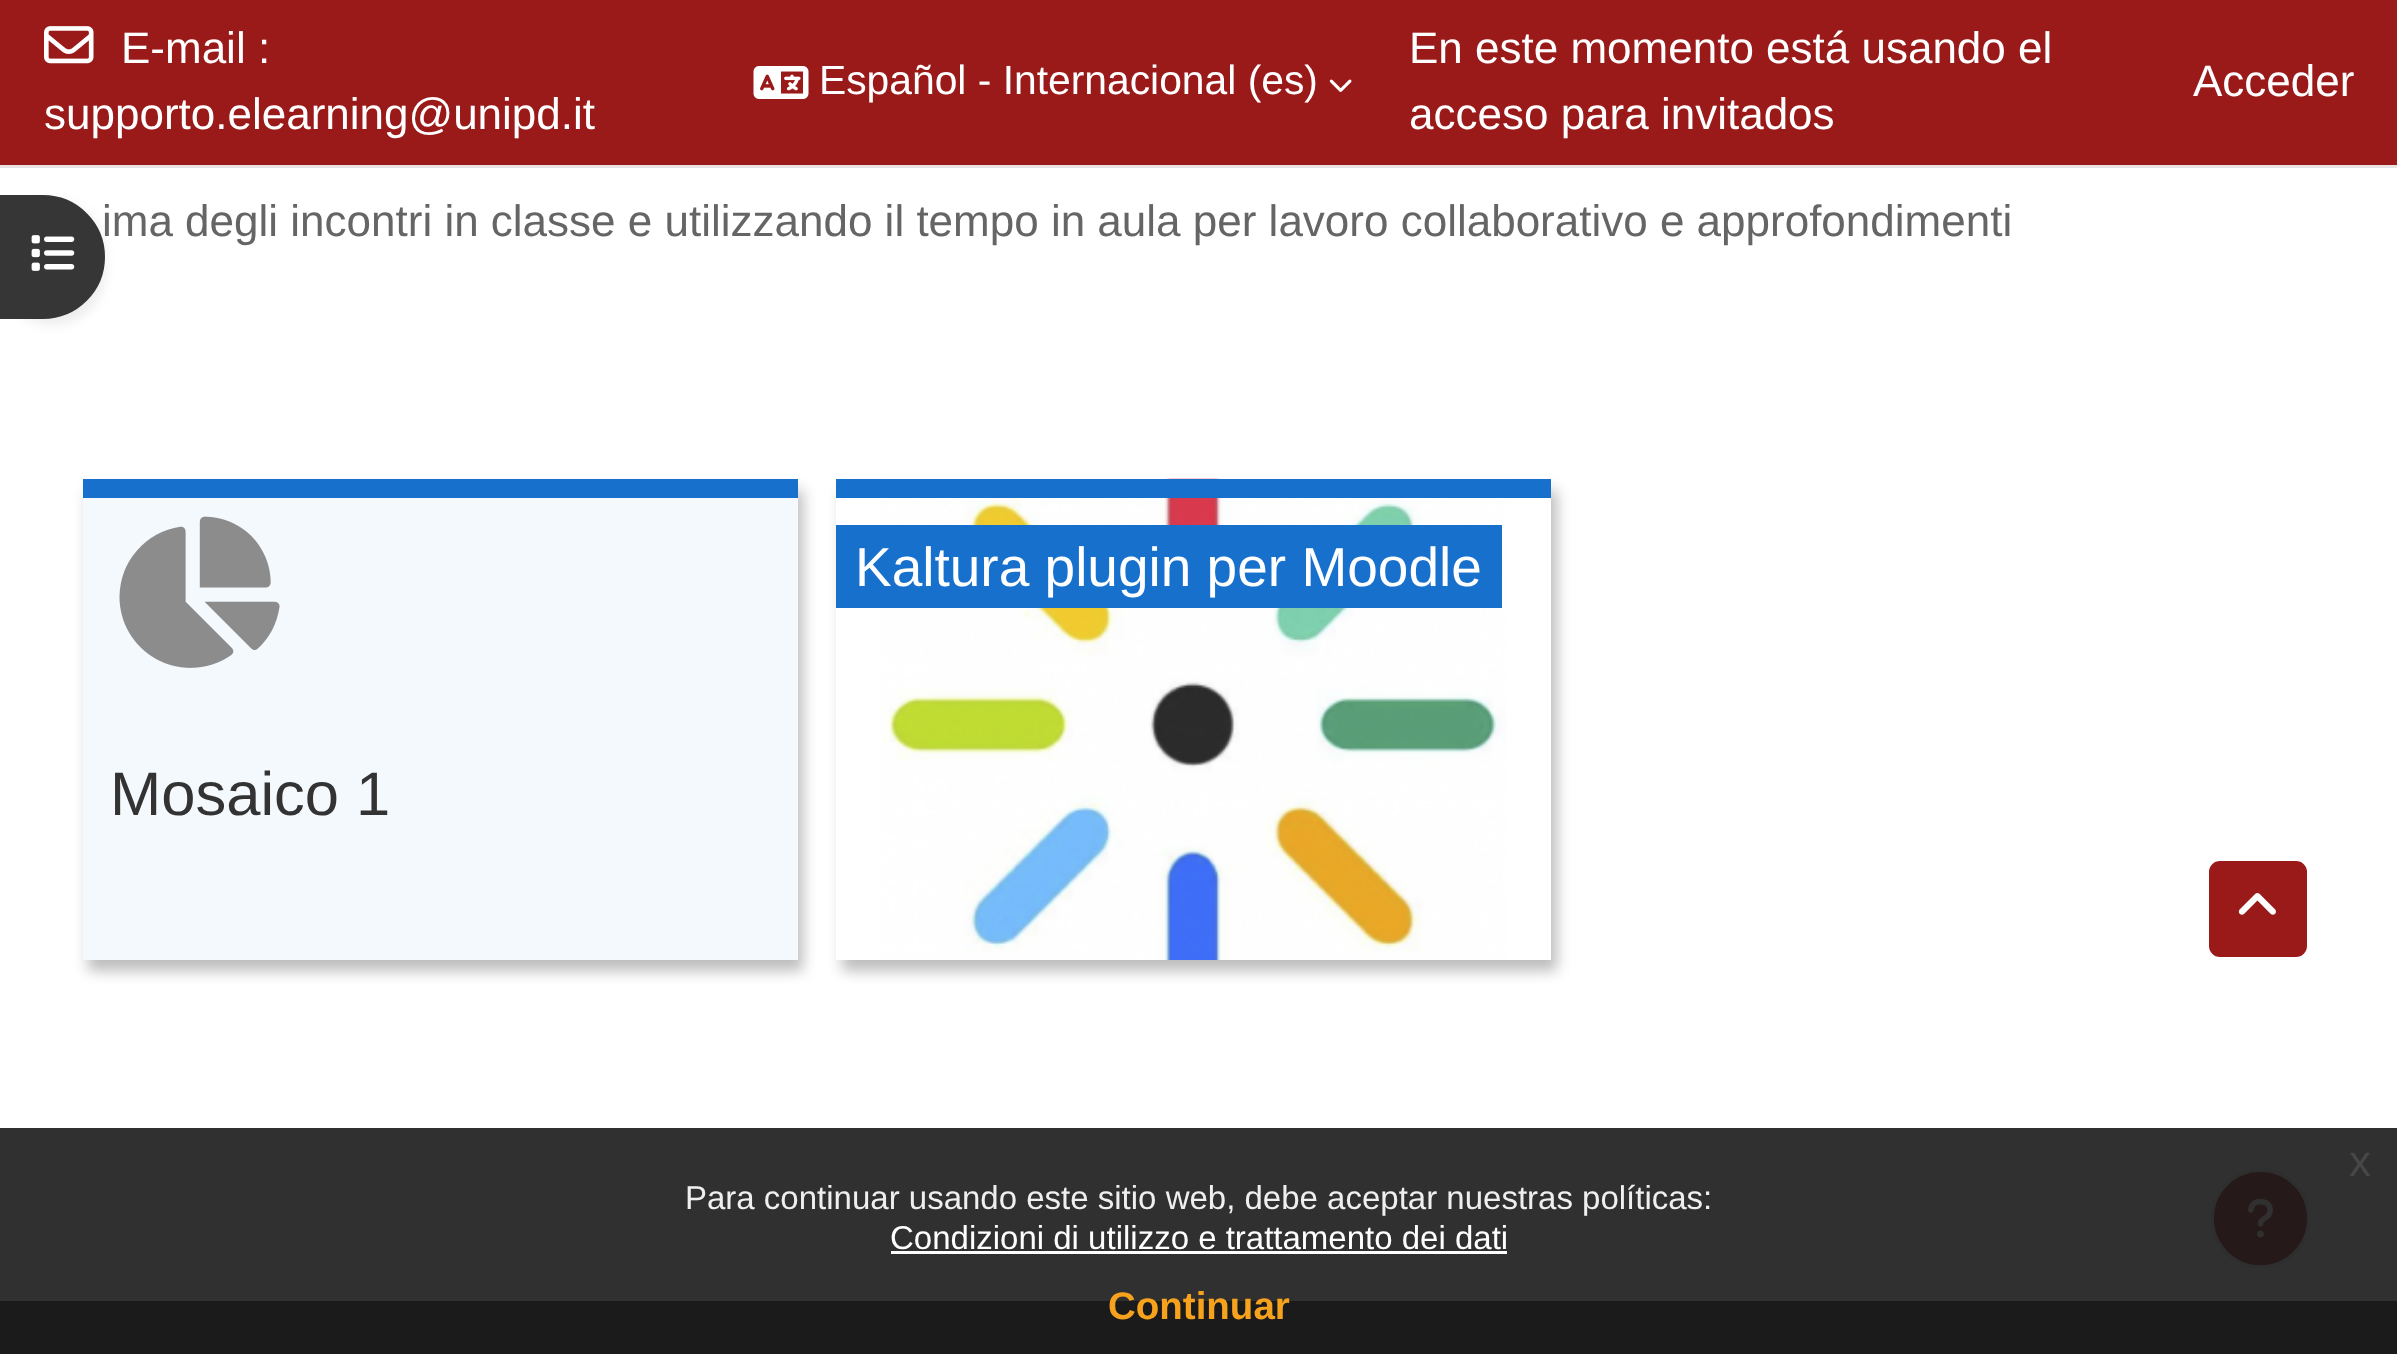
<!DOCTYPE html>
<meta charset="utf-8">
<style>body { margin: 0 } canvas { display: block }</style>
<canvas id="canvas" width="2397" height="1354"></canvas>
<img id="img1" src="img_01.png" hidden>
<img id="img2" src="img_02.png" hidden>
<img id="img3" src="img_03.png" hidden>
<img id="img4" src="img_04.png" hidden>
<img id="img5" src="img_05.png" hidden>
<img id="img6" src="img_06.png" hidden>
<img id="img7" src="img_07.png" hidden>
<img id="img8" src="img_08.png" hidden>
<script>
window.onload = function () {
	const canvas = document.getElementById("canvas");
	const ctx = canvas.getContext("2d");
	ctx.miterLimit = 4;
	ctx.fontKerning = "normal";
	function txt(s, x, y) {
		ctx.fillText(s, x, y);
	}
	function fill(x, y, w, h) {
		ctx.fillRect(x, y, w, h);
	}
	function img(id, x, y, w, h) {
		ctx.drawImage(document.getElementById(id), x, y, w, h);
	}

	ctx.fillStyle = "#FFFFFF";
	fill(0, 0, 2397, 1354);
	ctx.fillStyle = "#303030";
	fill(0, 1128, 2397, 173);
	ctx.fillStyle = "#9A1919";
	fill(0, 0, 2397, 165);
	ctx.fillStyle = "#E8E3E3";
	fill(0, 165, 2397, 3);
	img("img1", 44, 26, 50, 38);
	img("img2", 753, 66, 56, 33);
	img("img3", 1329, 79, 23, 13);
	ctx.fillStyle = "rgba(0, 0, 0, 0.07)";
	ctx.filter = "blur(5.5px)";
	ctx.beginPath();
	ctx.roundRect(0, 201, 105, 124, 62);
	ctx.fill();
	ctx.filter = "none";
	ctx.fillStyle = "#363636";
	ctx.beginPath();
	ctx.roundRect(1.5, 196.5, 102, 121, [0, 60.5, 60.5, 0]);
	ctx.fill();
	ctx.strokeStyle = "#363636";
	ctx.lineWidth = 3;
	ctx.stroke();
	img("img4", 31, 235, 44, 36);
	ctx.fillStyle = "#BDBDBD";
	ctx.filter = "blur(7px)";
	ctx.beginPath();
	ctx.rect(842, 490, 715, 481);
	ctx.fill();
	ctx.filter = "none";
	ctx.fillStyle = "#FFFFFF";
	fill(836, 498, 715, 462);
	img("img5", 881, 478, 625, 482);
	ctx.fillStyle = "#1670CC";
	fill(836, 479, 715, 19);
	fill(836, 525, 666, 83);
	ctx.fillStyle = "#BDBDBD";
	ctx.filter = "blur(7px)";
	ctx.beginPath();
	ctx.rect(88, 490, 715, 481);
	ctx.fill();
	ctx.filter = "none";
	ctx.fillStyle = "#1670CC";
	fill(83, 479, 715, 19);
	ctx.fillStyle = "#F4F9FD";
	fill(83, 498, 715, 462);
	img("img6", 119, 516, 161, 152);
	ctx.fillStyle = "#9A1919";
	ctx.beginPath();
	ctx.roundRect(2207.5, 859.5, 101, 99, 12.5);
	ctx.fill();
	ctx.strokeStyle = "#FFFFFF";
	ctx.stroke();
	img("img7", 2238, 893, 38, 22);
	ctx.fillStyle = "#261919";
	ctx.beginPath();
	ctx.arc(2260.5, 1218.5, 48, 0, Math.PI * 2);
	ctx.fill();
	ctx.strokeStyle = "#2E2E2E";
	ctx.stroke();
	img("img8", 2248, 1199, 25, 39);
	ctx.fillStyle = "#1B1B1B";
	fill(0, 1301, 2397, 53);
	ctx.fillStyle = "#FFFFFF";
	fill(891, 1251, 616, 3);
	ctx.font = "44px Liberation Sans";
	txt("E-mail :", 121, 63);
	txt("supporto.elearning@unipd.it", 44, 129);
	ctx.font = "40.8px Liberation Sans";
	txt("Español - Internacional (es)", 819, 94);
	ctx.font = "44px Liberation Sans";
	txt("En este momento está usando el", 1409, 63);
	txt("Acceder", 2193, 96);
	txt("acceso para invitados", 1409, 129);
	ctx.fillStyle = "#656565";
	txt("ima degli incontri in classe e utilizzando il tempo in aula per lavoro collaborativo e approfondimenti", 102, 236);
	ctx.font = "55px Liberation Sans";
	ctx.fillStyle = "#FFFFFF";
	txt("Kaltura plugin per Moodle", 855, 586);
	ctx.font = "61.5px Liberation Sans";
	ctx.fillStyle = "#333333";
	txt("Mosaico 1", 110, 815);
	ctx.font = "44px Liberation Sans";
	ctx.fillStyle = "#474747";
	txt("x", 2349, 1176);
	ctx.font = "33px Liberation Sans";
	ctx.fillStyle = "#EFEFEF";
	txt("Para continuar usando este sitio web, debe aceptar nuestras políticas:", 685, 1209);
	ctx.fillStyle = "#FFFFFF";
	txt("Condizioni di utilizzo e trattamento dei dati", 890, 1249);
	ctx.font = "bold 38.5px Liberation Sans";
	ctx.fillStyle = "#F6A21D";
	txt("Continuar", 1108, 1319);
};
</script>
